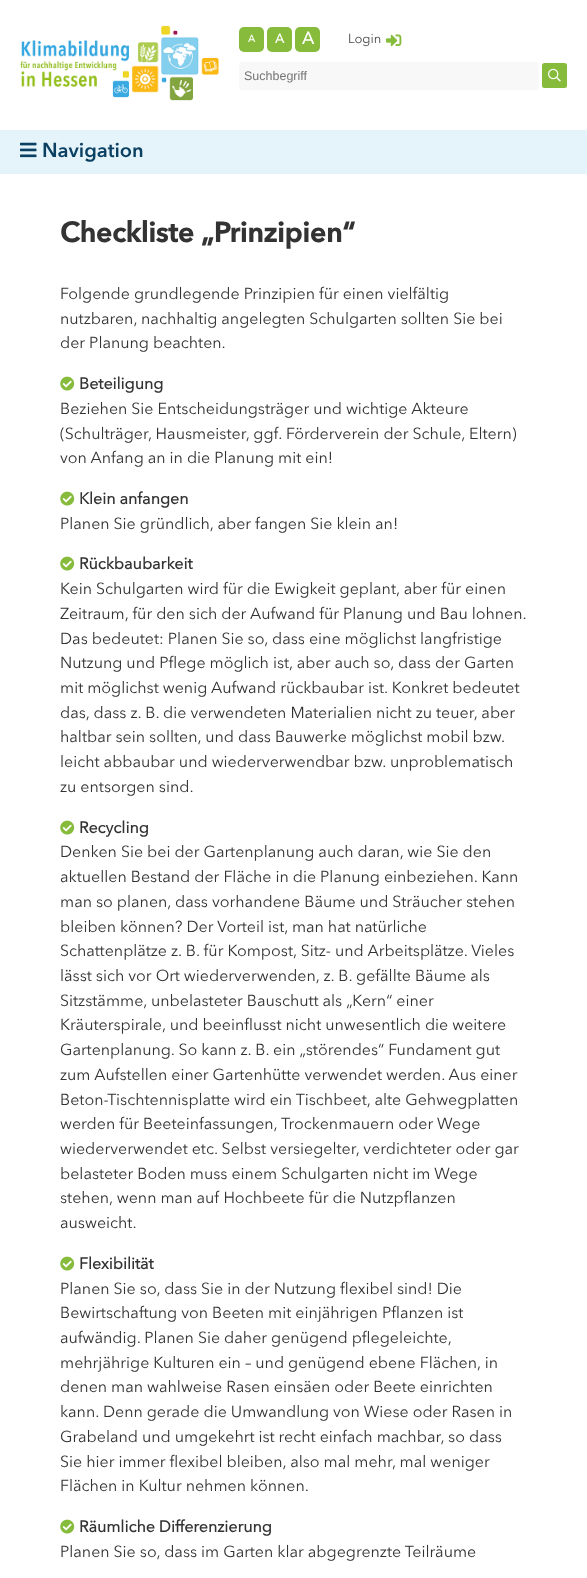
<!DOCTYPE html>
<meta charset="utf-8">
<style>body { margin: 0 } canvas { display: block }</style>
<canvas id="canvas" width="587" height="1578"></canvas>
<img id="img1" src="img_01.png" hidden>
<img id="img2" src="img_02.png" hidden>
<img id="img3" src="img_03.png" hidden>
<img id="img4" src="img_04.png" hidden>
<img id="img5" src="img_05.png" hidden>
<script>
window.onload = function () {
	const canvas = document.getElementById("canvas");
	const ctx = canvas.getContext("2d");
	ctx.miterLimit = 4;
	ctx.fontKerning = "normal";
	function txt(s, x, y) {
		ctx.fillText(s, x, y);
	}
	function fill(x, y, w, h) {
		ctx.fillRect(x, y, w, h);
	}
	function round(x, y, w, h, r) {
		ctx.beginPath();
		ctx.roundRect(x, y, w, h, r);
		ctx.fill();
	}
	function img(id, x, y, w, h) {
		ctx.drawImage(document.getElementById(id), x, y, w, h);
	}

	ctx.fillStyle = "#FFFFFF";
	fill(0, 0, 587, 1578);
	img("img1", 20, 25, 200, 76);
	ctx.fillStyle = "#87BB3C";
	round(239, 27, 25, 25, 5);
	round(267, 27, 25, 25, 5);
	round(295, 27, 25, 25, 5);
	img("img2", 386, 34, 16, 13);
	ctx.fillStyle = "#F8F8F8";
	round(239, 62, 300, 28, 2.5);
	ctx.fillStyle = "#87BB3C";
	round(542, 63, 25, 25, 2.5);
	img("img3", 548, 68, 13, 14);
	ctx.fillStyle = "#E5F4FB";
	fill(0, 130, 587, 44);
	img("img4", 20, 142, 17, 16);
	img("img5", 60, 376, 15, 15);
	img("img5", 60, 491, 15, 15);
	img("img5", 60, 556, 15, 15);
	img("img5", 60, 820, 15, 15);
	img("img5", 60, 1256, 15, 15);
	img("img5", 60, 1519, 15, 15);
	ctx.font = "bold 10px Avenir";
	ctx.fillStyle = "#FFFFFF";
	txt("A", 248, 42);
	ctx.font = "bold 13px Avenir";
	txt("A", 275, 43);
	ctx.font = "bold 17px Avenir";
	txt("A", 302, 44);
	ctx.font = "13px Avenir";
	ctx.fillStyle = "#4D4C4C";
	txt("Login", 348, 43);
	ctx.font = "12.5px Liberation Sans";
	ctx.fillStyle = "#757575";
	txt("Suchbegriff", 244, 80);
	ctx.font = "20px 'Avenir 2'";
	ctx.fillStyle = "#0B4062";
	txt("Navigation", 42, 157);
	ctx.font = "bold 28px 'Avenir 2'";
	ctx.fillStyle = "#333333";
	txt("Checkliste „Prinzipien“", 60, 242);
	ctx.font = "16px Avenir";
	txt("Folgende grundlegende Prinzipien für einen vielfältig", 60, 299);
	txt("nutzbaren, nachhaltig angelegten Schulgarten sollten Sie bei", 60, 324);
	txt("der Planung beachten.", 60, 348);
	ctx.font = "bold 16px Avenir";
	txt("Beteiligung", 79, 389);
	ctx.font = "16px Avenir";
	txt("Beziehen Sie Entscheidungsträger und wichtige Akteure", 60, 414);
	txt("(Schulträger, Hausmeister, ggf. Förderverein der Schule, Eltern)", 60, 439);
	txt("von Anfang an in die Planung mit ein!", 60, 463);
	ctx.font = "bold 16px Avenir";
	txt("Klein anfangen", 79, 504);
	ctx.font = "16px Avenir";
	txt("Planen Sie gründlich, aber fangen Sie klein an!", 60, 529);
	ctx.font = "bold 16px Avenir";
	txt("Rückbaubarkeit", 79, 569);
	ctx.font = "16px Avenir";
	txt("Kein Schulgarten wird für die Ewigkeit geplant, aber für einen", 60, 594);
	txt("Zeitraum, für den sich der Aufwand für Planung und Bau lohnen.", 60, 619);
	txt("Das bedeutet: Planen Sie so, dass eine möglichst langfristige", 60, 644);
	txt("Nutzung und Pflege möglich ist, aber auch so, dass der Garten", 60, 668);
	txt("mit möglichst wenig Aufwand rückbaubar ist. Konkret bedeutet", 60, 693);
	txt("das, dass z. B. die verwendeten Materialien nicht zu teuer, aber", 60, 718);
	txt("haltbar sein sollten, und dass Bauwerke möglichst mobil bzw.", 60, 742);
	txt("leicht abbaubar und wiederverwendbar bzw. unproblematisch", 60, 767);
	txt("zu entsorgen sind.", 60, 792);
	ctx.font = "bold 16px Avenir";
	txt("Recycling", 79, 833);
	ctx.font = "16px Avenir";
	txt("Denken Sie bei der Gartenplanung auch daran, wie Sie den", 60, 857);
	txt("aktuellen Bestand der Fläche in die Planung einbeziehen. Kann", 60, 882);
	txt("man so planen, dass vorhandene Bäume und Sträucher stehen", 60, 907);
	txt("bleiben können? Der Vorteil ist, man hat natürliche", 60, 932);
	txt("Schattenplätze z. B. für Kompost, Sitz- und Arbeitsplätze. Vieles", 60, 956);
	txt("lässt sich vor Ort wiederverwenden, z. B. gefällte Bäume als", 60, 981);
	txt("Sitzstämme, unbelasteter Bauschutt als „Kern“ einer", 60, 1006);
	txt("Kräuterspirale, und beeinflusst nicht unwesentlich die weitere", 60, 1030);
	txt("Gartenplanung. So kann z. B. ein „störendes“ Fundament gut", 60, 1055);
	txt("zum Aufstellen einer Gartenhütte verwendet werden. Aus einer", 60, 1080);
	txt("Beton-Tischtennisplatte wird ein Tischbeet, alte Gehwegplatten", 60, 1105);
	txt("werden für Beeteinfassungen, Trockenmauern oder Wege", 60, 1129);
	txt("wiederverwendet etc. Selbst versiegelter, verdichteter oder gar", 60, 1154);
	txt("belasteter Boden muss einem Schulgarten nicht im Wege", 60, 1179);
	txt("stehen, wenn man auf Hochbeete für die Nutzpflanzen", 60, 1203);
	txt("ausweicht.", 60, 1228);
	ctx.font = "bold 16px Avenir";
	txt("Flexibilität", 79, 1269);
	ctx.font = "16px Avenir";
	txt("Planen Sie so, dass Sie in der Nutzung flexibel sind! Die", 60, 1294);
	txt("Bewirtschaftung von Beeten mit einjährigen Pflanzen ist", 60, 1318);
	txt("aufwändig. Planen Sie daher genügend pflegeleichte,", 60, 1343);
	txt("mehrjährige Kulturen ein – und genügend ebene Flächen, in", 60, 1368);
	txt("denen man wahlweise Rasen einsäen oder Beete einrichten", 60, 1392);
	txt("kann. Denn gerade die Umwandlung von Wiese oder Rasen in", 60, 1417);
	txt("Grabeland und umgekehrt ist recht einfach machbar, so dass", 60, 1442);
	txt("Sie hier immer flexibel bleiben, also mal mehr, mal weniger", 60, 1467);
	txt("Flächen in Kultur nehmen können.", 60, 1491);
	ctx.font = "bold 16px Avenir";
	txt("Räumliche Differenzierung", 79, 1532);
	ctx.font = "16px Avenir";
	txt("Planen Sie so, dass im Garten klar abgegrenzte Teilräume", 60, 1557);
};
</script>
